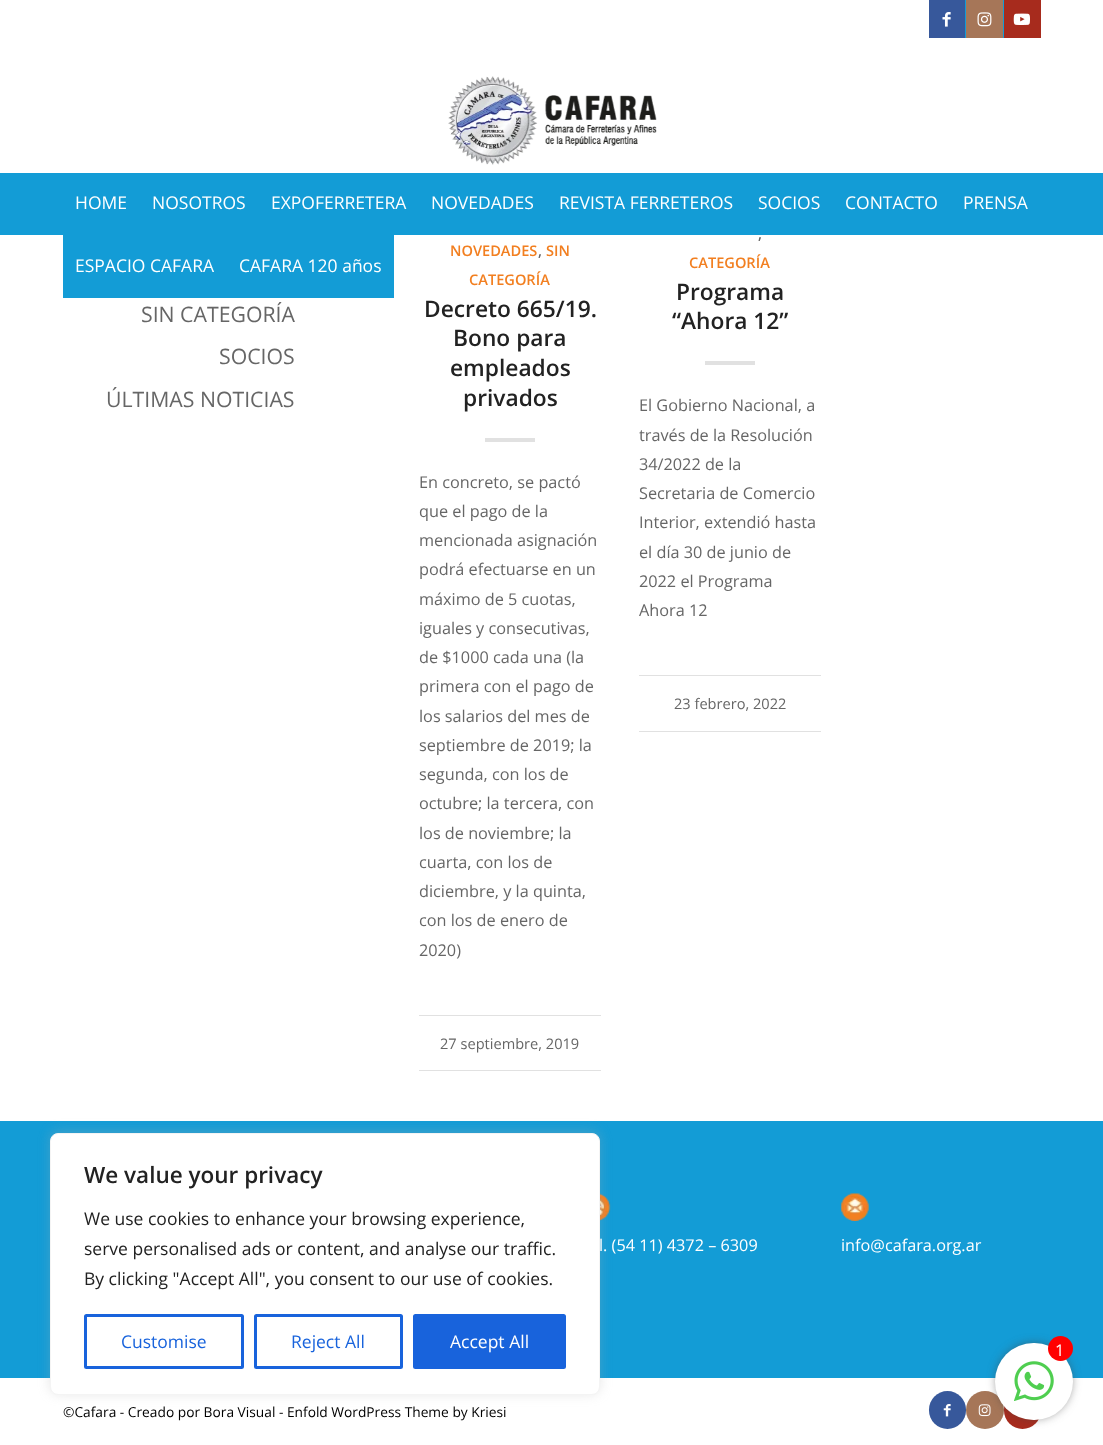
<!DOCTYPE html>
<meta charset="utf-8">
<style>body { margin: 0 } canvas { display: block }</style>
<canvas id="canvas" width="1103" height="1445"></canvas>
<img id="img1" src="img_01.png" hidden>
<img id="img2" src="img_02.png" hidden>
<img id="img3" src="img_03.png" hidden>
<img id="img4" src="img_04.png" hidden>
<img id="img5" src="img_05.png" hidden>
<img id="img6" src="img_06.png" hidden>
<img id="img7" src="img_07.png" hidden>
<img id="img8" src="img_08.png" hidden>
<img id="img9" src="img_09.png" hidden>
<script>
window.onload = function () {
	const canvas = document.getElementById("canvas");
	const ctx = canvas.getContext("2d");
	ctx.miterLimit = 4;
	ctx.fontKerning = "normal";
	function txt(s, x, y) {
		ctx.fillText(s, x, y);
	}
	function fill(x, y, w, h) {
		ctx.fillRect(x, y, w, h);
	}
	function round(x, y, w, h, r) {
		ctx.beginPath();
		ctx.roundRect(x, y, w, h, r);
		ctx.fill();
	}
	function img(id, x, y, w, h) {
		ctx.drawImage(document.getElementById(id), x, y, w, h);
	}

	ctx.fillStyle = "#FFFFFF";
	fill(0, 0, 1103, 1445);
	ctx.fillStyle = "#139CD6";
	fill(965, 0, 1, 38);
	ctx.fillStyle = "#37589B";
	fill(929, 0, 36, 38);
	img("img1", 942, 12, 9, 15);
	ctx.fillStyle = "#139CD6";
	fill(1003, 0, 1, 38);
	ctx.fillStyle = "#A67658";
	fill(966, 0, 37, 38);
	img("img2", 977, 12, 15, 15);
	ctx.fillStyle = "#A72B1D";
	fill(1004, 0, 37, 38);
	img("img3", 1013, 13, 17, 12);
	img("img4", 448, 76, 209, 89);
	ctx.fillStyle = "#139CD6";
	fill(0, 173, 1103, 62);
	fill(63, 235, 331, 63);
	ctx.fillStyle = "#E1E1E1";
	fill(485, 438, 50, 4);
	fill(419, 1015, 182, 1);
	fill(419, 1070, 182, 1);
	fill(705, 361, 50, 4);
	fill(639, 675, 182, 1);
	fill(639, 731, 182, 1);
	ctx.fillStyle = "#139CD6";
	fill(0, 1121, 1103, 257);
	img("img5", 600, 1193, 11, 28);
	img("img6", 841, 1193, 28, 28);
	ctx.fillStyle = "#37589B";
	round(929, 1391, 37, 38, 18.5);
	img("img7", 943, 1404, 8, 13);
	ctx.fillStyle = "#A67658";
	ctx.beginPath();
	ctx.arc(985, 1410, 19, 0, Math.PI * 2);
	ctx.fill();
	img("img8", 978, 1404, 13, 13);
	ctx.fillStyle = "#A72B1D";
	round(1004, 1391, 37, 38, 18.5);
	ctx.fillStyle = "rgba(172, 171, 171, 0.3)";
	ctx.filter = "blur(6px)";
	ctx.beginPath();
	ctx.roundRect(50, 1131, 550, 263, 8);
	ctx.fill();
	ctx.filter = "none";
	ctx.fillStyle = "#FFFFFF";
	ctx.beginPath();
	ctx.roundRect(50.5, 1133.5, 549, 261, 7.5);
	ctx.fill();
	ctx.strokeStyle = "#F4F4F4";
	ctx.stroke();
	ctx.beginPath();
	ctx.roundRect(85.5, 1315.5, 157, 52, 1);
	ctx.strokeStyle = "#1863DC";
	ctx.lineWidth = 3;
	ctx.stroke();
	ctx.beginPath();
	ctx.roundRect(255.5, 1315.5, 146, 52, 1);
	ctx.stroke();
	ctx.fillStyle = "#1863DC";
	ctx.beginPath();
	ctx.roundRect(414.5, 1315.5, 150, 52, 1);
	ctx.fill();
	ctx.stroke();
	ctx.fillStyle = "#444444";
	ctx.filter = "blur(6px)";
	ctx.beginPath();
	ctx.roundRect(999, 1346, 70, 70, 35);
	ctx.fill();
	ctx.filter = "none";
	ctx.fillStyle = "#FFFFFF";
	round(995, 1343, 78, 77, 38.5);
	ctx.fillStyle = "#FF0000";
	ctx.beginPath();
	ctx.arc(1060.5, 1348.5, 12.5, 0, Math.PI * 2);
	ctx.fill();
	img("img9", 1014, 1361, 40, 40);
	ctx.font = "17.5px Open Sans";
	ctx.fillStyle = "#FFFFFF";
	txt("HOME", 75, 209);
	txt("NOSOTROS", 152, 209);
	txt("EXPOFERRETERA", 271, 209);
	txt("NOVEDADES", 431, 209);
	txt("REVISTA FERRETEROS", 559, 209);
	txt("SOCIOS", 758, 209);
	txt("CONTACTO", 845, 209);
	txt("PRENSA", 963, 209);
	txt("ESPACIO CAFARA", 75, 272);
	txt("CAFARA 120 años", 239, 272);
	ctx.font = "21.25px Open Sans";
	ctx.fillStyle = "#666666";
	txt("SIN CATEGORÍA", 141, 322);
	txt("SOCIOS", 219, 364);
	txt("ÚLTIMAS NOTICIAS", 106, 407);
	ctx.font = "600 14.6px Open Sans";
	ctx.fillStyle = "#F27F20";
	txt("NOVEDADES", 450, 256);
	ctx.fillStyle = "#666666";
	txt(",", 538, 256);
	ctx.fillStyle = "#F27F20";
	txt("SIN", 546, 256);
	txt("CATEGORÍA", 469, 285);
	ctx.font = "600 22.75px Open Sans";
	ctx.fillStyle = "#222222";
	txt("Decreto 665/19.", 424, 317);
	txt("Bono para", 453, 346);
	txt("empleados", 450, 376);
	txt("privados", 463, 406);
	ctx.font = "16.25px Open Sans";
	ctx.fillStyle = "#666666";
	txt("En concreto, se pactó", 419, 488);
	txt("que el pago de la", 419, 517);
	txt("mencionada asignación", 419, 546);
	txt("podrá efectuarse en un", 419, 575);
	txt("máximo de 5 cuotas,", 419, 605);
	txt("iguales y consecutivas,", 419, 634);
	txt("de $1000 cada una (la", 419, 663);
	txt("primera con el pago de", 419, 692);
	txt("los salarios del mes de", 419, 722);
	txt("septiembre de 2019; la", 419, 751);
	txt("segunda, con los de", 419, 780);
	txt("octubre; la tercera, con", 419, 809);
	txt("los de noviembre; la", 419, 839);
	txt("cuarta, con los de", 419, 868);
	txt("diciembre, y la quinta,", 419, 897);
	txt("con los de enero de", 419, 926);
	txt("2020)", 419, 956);
	ctx.font = "14.6px Open Sans";
	txt("27 septiembre, 2019", 440, 1049);
	ctx.font = "600 14.6px Open Sans";
	txt(",", 758, 239);
	ctx.fillStyle = "#F27F20";
	txt("CATEGORÍA", 689, 268);
	ctx.font = "600 22.75px Open Sans";
	ctx.fillStyle = "#222222";
	txt("Programa", 676, 300);
	txt("“Ahora 12”", 672, 329);
	ctx.font = "16.25px Open Sans";
	ctx.fillStyle = "#666666";
	txt("El Gobierno Nacional, a", 639, 411);
	txt("través de la Resolución", 639, 441);
	txt("34/2022 de la", 639, 470);
	txt("Secretaria de Comercio", 639, 499);
	txt("Interior, extendió hasta", 639, 528);
	txt("el día 30 de junio de", 639, 558);
	txt("2022 el Programa", 639, 587);
	txt("Ahora 12", 639, 616);
	ctx.font = "14.6px Open Sans";
	txt("23 febrero, 2022", 674, 709);
	ctx.font = "16.25px Open Sans";
	ctx.fillStyle = "#FFFFFF";
	txt("l. (54 11) 4372 – 6309", 599, 1251);
	txt("info@cafara.org.ar", 841, 1251);
	ctx.font = "13.75px Open Sans";
	ctx.fillStyle = "#000000";
	txt("©Cafara - Creado por Bora Visual - Enfold WordPress Theme by Kriesi", 63, 1417);
	ctx.font = "600 22.5px Open Sans";
	ctx.fillStyle = "#222222";
	txt("We value your privacy", 84, 1183);
	ctx.font = "17.5px Open Sans";
	txt("We use cookies to enhance your browsing experience,", 84, 1225);
	txt("serve personalised ads or content, and analyse our traffic.", 84, 1255);
	txt("By clicking \"Accept All\", you consent to our use of cookies.", 84, 1285);
	ctx.fillStyle = "#1863DC";
	txt("Customise", 121, 1348);
	txt("Reject All", 291, 1348);
	ctx.fillStyle = "#FFFFFF";
	txt("Accept All", 450, 1348);
	ctx.font = "16.25px Open Sans";
	txt("1", 1055, 1356);
};
</script>
